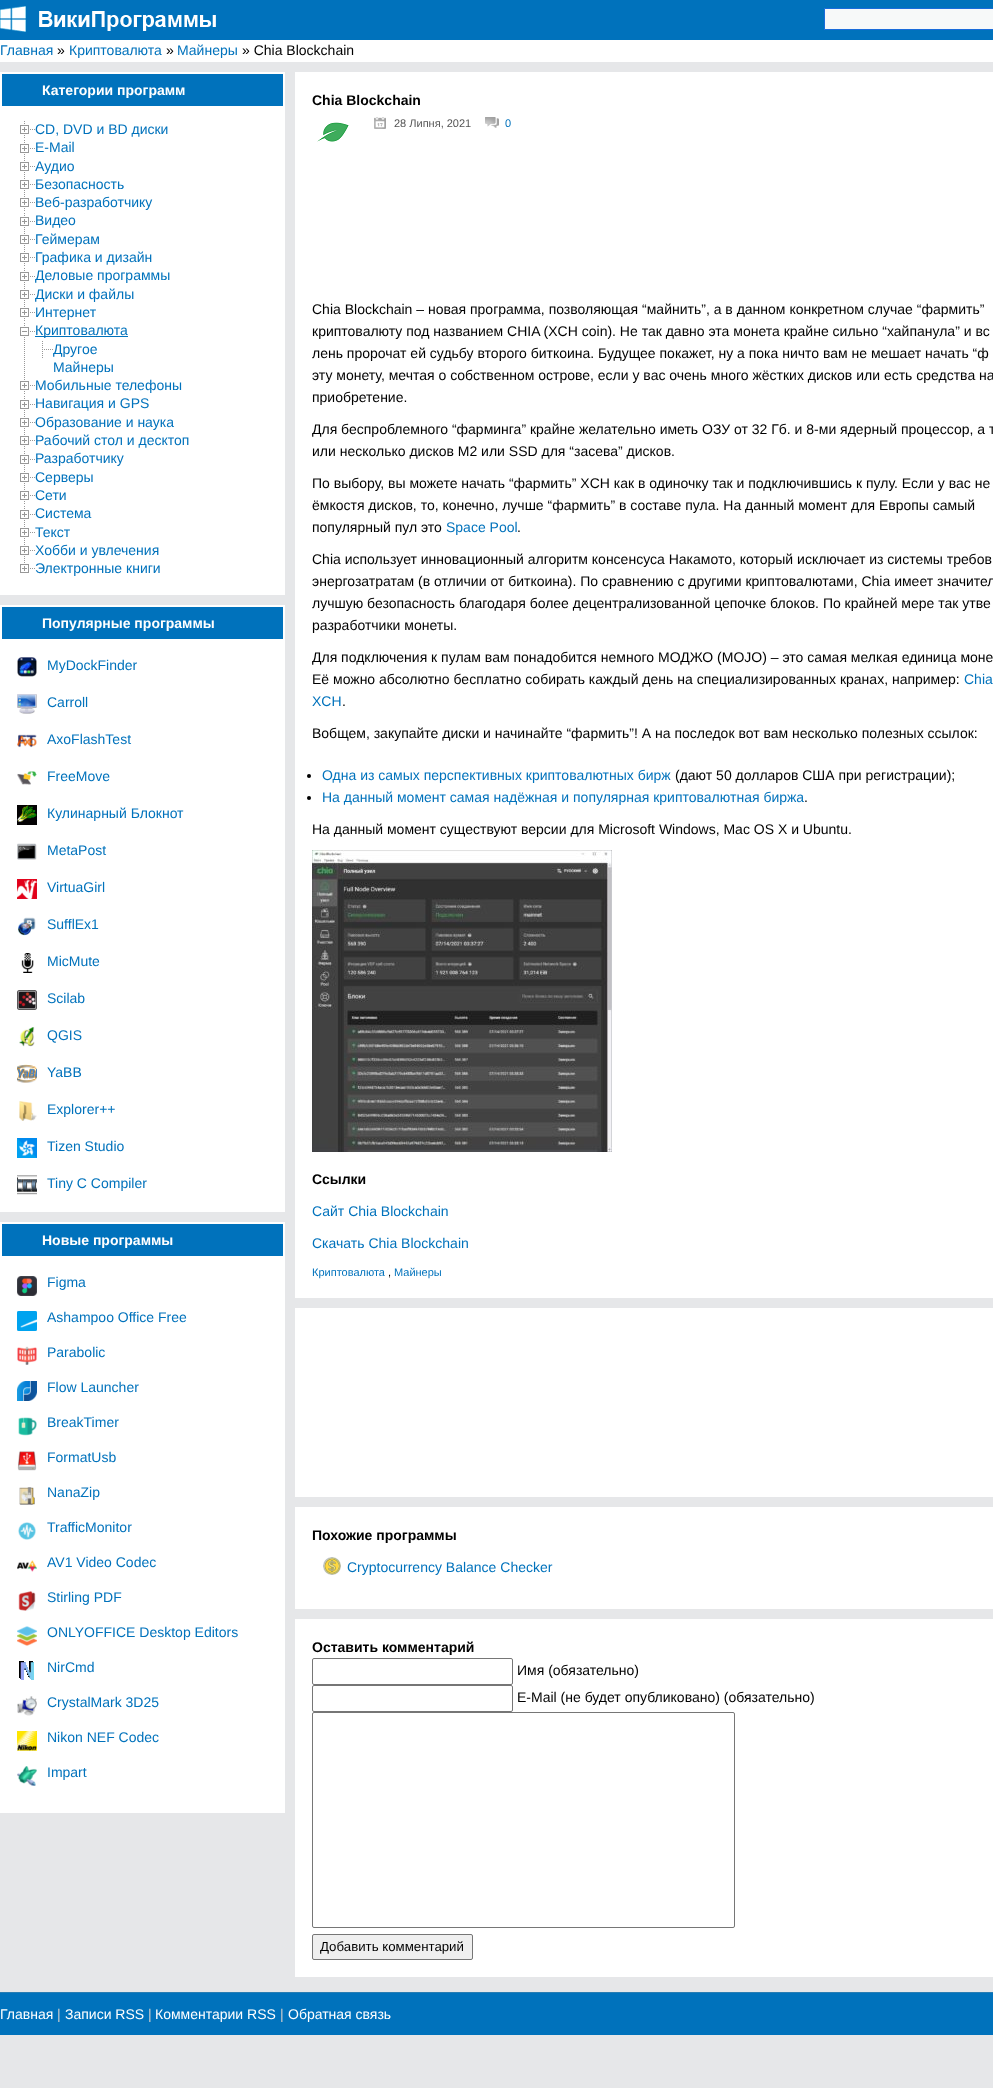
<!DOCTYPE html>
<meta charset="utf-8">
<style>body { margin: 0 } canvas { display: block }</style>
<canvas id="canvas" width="993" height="2088"></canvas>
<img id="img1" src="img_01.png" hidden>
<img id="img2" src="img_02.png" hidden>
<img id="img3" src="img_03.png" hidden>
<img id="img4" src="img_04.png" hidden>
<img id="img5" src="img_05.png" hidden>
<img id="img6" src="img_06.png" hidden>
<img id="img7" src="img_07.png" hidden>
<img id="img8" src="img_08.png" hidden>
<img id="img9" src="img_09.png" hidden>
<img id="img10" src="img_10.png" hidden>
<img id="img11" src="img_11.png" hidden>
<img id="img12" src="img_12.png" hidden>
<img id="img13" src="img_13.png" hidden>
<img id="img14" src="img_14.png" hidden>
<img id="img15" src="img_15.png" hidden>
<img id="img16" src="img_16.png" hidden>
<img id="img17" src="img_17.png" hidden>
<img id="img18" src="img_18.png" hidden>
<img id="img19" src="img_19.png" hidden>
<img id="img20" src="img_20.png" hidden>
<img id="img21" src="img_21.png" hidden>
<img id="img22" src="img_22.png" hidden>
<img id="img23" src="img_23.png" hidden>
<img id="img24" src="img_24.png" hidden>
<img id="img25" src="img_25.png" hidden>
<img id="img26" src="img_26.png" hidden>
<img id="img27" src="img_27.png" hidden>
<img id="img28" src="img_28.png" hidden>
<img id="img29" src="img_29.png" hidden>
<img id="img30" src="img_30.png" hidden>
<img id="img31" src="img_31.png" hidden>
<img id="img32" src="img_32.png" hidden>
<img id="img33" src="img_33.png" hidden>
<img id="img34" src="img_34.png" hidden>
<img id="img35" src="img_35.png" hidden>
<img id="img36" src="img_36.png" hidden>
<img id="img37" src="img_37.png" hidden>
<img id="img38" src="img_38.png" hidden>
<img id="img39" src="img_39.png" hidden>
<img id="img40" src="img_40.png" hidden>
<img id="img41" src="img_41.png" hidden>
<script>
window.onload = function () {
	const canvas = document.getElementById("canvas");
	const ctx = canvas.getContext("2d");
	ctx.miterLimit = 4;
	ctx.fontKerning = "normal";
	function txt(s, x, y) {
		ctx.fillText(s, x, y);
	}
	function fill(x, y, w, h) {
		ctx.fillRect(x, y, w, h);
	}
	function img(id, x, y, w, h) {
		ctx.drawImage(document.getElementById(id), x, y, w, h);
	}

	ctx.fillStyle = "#E6E7E9";
	fill(0, 0, 993, 2088);
	ctx.fillStyle = "#0072BC";
	fill(0, 0, 993, 40);
	img("img1", 0, 6, 216, 26);
	ctx.fillStyle = "#F7F9F9";
	ctx.beginPath();
	ctx.rect(824.5, 8.5, 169, 21);
	ctx.fill();
	ctx.strokeStyle = "#1A6CDB";
	ctx.stroke();
	ctx.fillStyle = "#FFFFFF";
	fill(0, 40, 993, 22);
	fill(0, 72, 285, 523);
	ctx.fillStyle = "#0072BC";
	fill(2, 74, 281, 32);
	img("img2", 20, 121, 15, 17);
	img("img2", 20, 140, 15, 17);
	img("img2", 20, 158, 15, 17);
	img("img2", 20, 176, 15, 17);
	img("img2", 20, 194, 15, 17);
	img("img2", 20, 213, 15, 17);
	img("img2", 20, 231, 15, 17);
	img("img2", 20, 249, 15, 17);
	img("img2", 20, 268, 15, 17);
	img("img2", 20, 286, 15, 17);
	img("img2", 20, 304, 15, 17);
	img("img3", 20, 323, 15, 17);
	fill(35, 336, 93, 1);
	img("img4", 24, 341, 1, 17);
	img("img5", 42, 341, 11, 17);
	img("img4", 24, 359, 1, 17);
	img("img2", 20, 377, 15, 17);
	img("img2", 20, 396, 15, 17);
	img("img2", 20, 414, 15, 17);
	img("img2", 20, 432, 15, 17);
	img("img2", 20, 451, 15, 17);
	img("img2", 20, 469, 15, 17);
	img("img2", 20, 487, 15, 17);
	img("img2", 20, 506, 15, 17);
	img("img2", 20, 524, 15, 17);
	img("img2", 20, 542, 15, 17);
	img("img6", 20, 560, 15, 13);
	ctx.fillStyle = "#FFFFFF";
	fill(0, 605, 285, 607);
	ctx.fillStyle = "#0072BC";
	fill(2, 607, 281, 32);
	img("img7", 17, 657, 20, 20);
	img("img8", 17, 694, 20, 20);
	img("img9", 17, 734, 20, 14);
	img("img10", 17, 771, 20, 14);
	img("img11", 17, 805, 20, 20);
	img("img12", 17, 843, 20, 17);
	img("img13", 17, 879, 20, 20);
	img("img14", 17, 917, 19, 19);
	img("img15", 21, 953, 13, 20);
	img("img16", 17, 990, 20, 20);
	img("img17", 19, 1027, 16, 20);
	img("img18", 17, 1064, 20, 19);
	img("img19", 19, 1101, 18, 20);
	img("img20", 17, 1138, 20, 20);
	img("img21", 17, 1175, 20, 20);
	ctx.fillStyle = "#FFFFFF";
	fill(0, 1222, 285, 591);
	ctx.fillStyle = "#0072BC";
	fill(2, 1224, 281, 32);
	img("img22", 17, 1276, 20, 20);
	img("img23", 17, 1311, 20, 20);
	img("img24", 17, 1346, 20, 19);
	img("img25", 17, 1381, 20, 20);
	img("img26", 18, 1417, 19, 19);
	img("img27", 17, 1451, 20, 20);
	img("img28", 19, 1487, 16, 18);
	img("img29", 18, 1522, 18, 18);
	img("img30", 17, 1560, 20, 12);
	img("img31", 18, 1591, 18, 20);
	img("img32", 17, 1626, 20, 20);
	img("img33", 19, 1661, 15, 19);
	img("img34", 17, 1696, 20, 20);
	img("img35", 17, 1731, 20, 20);
	img("img36", 17, 1766, 20, 20);
	ctx.fillStyle = "#FFFFFF";
	fill(295, 72, 698, 1226);
	img("img37", 317, 122, 32, 20);
	img("img38", 374, 117, 12, 12);
	img("img39", 485, 117, 14, 11);
	ctx.fillStyle = "#000000";
	ctx.beginPath();
	ctx.arc(309, 776, 2, 0, Math.PI * 2);
	ctx.fill();
	ctx.beginPath();
	ctx.arc(309, 798, 2, 0, Math.PI * 2);
	ctx.fill();
	img("img40", 312, 850, 300, 302);
	ctx.fillStyle = "#FFFFFF";
	fill(295, 1308, 698, 189);
	fill(295, 1507, 698, 102);
	img("img41", 323, 1557, 18, 18);
	fill(295, 1619, 698, 358);
	ctx.beginPath();
	ctx.roundRect(312.5, 1658.5, 200, 26, 1.5);
	ctx.strokeStyle = "#767676";
	ctx.stroke();
	ctx.beginPath();
	ctx.roundRect(312.5, 1685.5, 200, 26, 1.5);
	ctx.stroke();
	ctx.beginPath();
	ctx.roundRect(312.5, 1712.5, 422, 215, 1.5);
	ctx.stroke();
	ctx.fillStyle = "#EFEFEF";
	ctx.beginPath();
	ctx.roundRect(312.5, 1934.5, 160, 25, 1.5);
	ctx.fill();
	ctx.stroke();
	ctx.fillStyle = "#0072BC";
	fill(0, 1993, 993, 42);
	ctx.fillStyle = "#277DB4";
	fill(0, 1992, 993, 1);
	ctx.font = "14px Liberation Sans";
	ctx.fillStyle = "#0072BC";
	txt("Главная", 0, 55);
	ctx.fillStyle = "#000000";
	txt("»", 57, 55);
	ctx.fillStyle = "#0072BC";
	txt("Криптовалюта", 69, 55);
	ctx.fillStyle = "#000000";
	txt("»", 166, 55);
	ctx.fillStyle = "#0072BC";
	txt("Майнеры", 177, 55);
	ctx.fillStyle = "#000000";
	txt("» Chia Blockchain", 242, 55);
	ctx.font = "bold 14px Liberation Sans";
	ctx.fillStyle = "#FFFFFF";
	txt("Категории программ", 42, 95);
	ctx.font = "14px Liberation Sans";
	ctx.fillStyle = "#0072BC";
	txt("CD, DVD и BD диски", 35, 134);
	txt("E-Mail", 35, 152);
	txt("Аудио", 35, 171);
	txt("Безопасность", 35, 189);
	txt("Веб-разработчику", 35, 207);
	txt("Видео", 35, 225);
	txt("Геймерам", 35, 244);
	txt("Графика и дизайн", 35, 262);
	txt("Деловые программы", 35, 280);
	txt("Диски и файлы", 35, 299);
	txt("Интернет", 35, 317);
	txt("Криптовалюта", 35, 335);
	txt("Другое", 53, 354);
	txt("Майнеры", 53, 372);
	txt("Мобильные телефоны", 35, 390);
	txt("Навигация и GPS", 35, 408);
	txt("Образование и наука", 35, 427);
	txt("Рабочий стол и десктоп", 35, 445);
	txt("Разработчику", 35, 463);
	txt("Серверы", 35, 482);
	txt("Сети", 35, 500);
	txt("Система", 35, 518);
	txt("Текст", 35, 537);
	txt("Хобби и увлечения", 35, 555);
	txt("Электронные книги", 35, 573);
	ctx.font = "bold 14px Liberation Sans";
	ctx.fillStyle = "#FFFFFF";
	txt("Популярные программы", 42, 628);
	ctx.font = "14px Liberation Sans";
	ctx.fillStyle = "#0072BC";
	txt("MyDockFinder", 47, 670);
	txt("Carroll", 47, 707);
	txt("AxoFlashTest", 47, 744);
	txt("FreeMove", 47, 781);
	txt("Кулинарный Блокнот", 47, 818);
	txt("MetaPost", 47, 855);
	txt("VirtuaGirl", 47, 892);
	txt("SufflEx1", 47, 929);
	txt("MicMute", 47, 966);
	txt("Scilab", 47, 1003);
	txt("QGIS", 47, 1040);
	txt("YaBB", 47, 1077);
	txt("Explorer++", 47, 1114);
	txt("Tizen Studio", 47, 1151);
	txt("Tiny C Compiler", 47, 1188);
	ctx.font = "bold 14px Liberation Sans";
	ctx.fillStyle = "#FFFFFF";
	txt("Новые программы", 42, 1245);
	ctx.font = "14px Liberation Sans";
	ctx.fillStyle = "#0072BC";
	txt("Figma", 47, 1287);
	txt("Ashampoo Office Free", 47, 1322);
	txt("Parabolic", 47, 1357);
	txt("Flow Launcher", 47, 1392);
	txt("BreakTimer", 47, 1427);
	txt("FormatUsb", 47, 1462);
	txt("NanaZip", 47, 1497);
	txt("TrafficMonitor", 47, 1532);
	txt("AV1 Video Codec", 47, 1567);
	txt("Stirling PDF", 47, 1602);
	txt("ONLYOFFICE Desktop Editors", 47, 1637);
	txt("NirCmd", 47, 1672);
	txt("CrystalMark 3D25", 47, 1707);
	txt("Nikon NEF Codec", 47, 1742);
	txt("Impart", 47, 1777);
	ctx.font = "bold 14px Liberation Sans";
	ctx.fillStyle = "#000000";
	txt("Chia Blockchain", 312, 105);
	ctx.font = "11px Liberation Sans";
	ctx.fillStyle = "#555555";
	txt("28 Липня, 2021", 394, 127);
	ctx.fillStyle = "#0072BC";
	txt("0", 505, 127);
	ctx.font = "14px Liberation Sans";
	ctx.fillStyle = "#000000";
	txt("Chia Blockchain – новая программа, позволяющая “майнить”, а в данном конкретном случае “фармить”", 312, 314);
	txt("криптовалюту под названием CHIA (XCH coin). Не так давно эта монета крайне сильно “хайпанула” и вс", 312, 336);
	txt("лень пророчат ей судьбу второго биткоина. Будущее покажет, ну а пока ничто вам не мешает начать “ф", 312, 358);
	txt("эту монету, мечтая о собственном острове, если у вас очень много жёстких дисков или есть средства на", 312, 380);
	txt("приобретение.", 312, 402);
	txt("Для беспроблемного “фарминга” крайне желательно иметь ОЗУ от 32 Гб. и 8-ми ядерный процессор, а т", 312, 434);
	txt("или несколько дисков М2 или SSD для “засева” дисков.", 312, 456);
	txt("По выбору, вы можете начать “фармить” XCH как в одиночку так и подключившись к пулу. Если у вас не", 312, 488);
	txt("ёмкостя дисков, то, конечно, лучше “фармить” в составе пула. На данный момент для Европы самый", 312, 510);
	txt("популярный пул это", 312, 532);
	ctx.fillStyle = "#0072BC";
	txt("Space Pool", 446, 532);
	ctx.fillStyle = "#000000";
	txt(".", 517, 532);
	txt("Chia использует инновационный алгоритм консенсуса Накамото, который исключает из системы требов", 312, 564);
	txt("энергозатратам (в отличии от биткоина). По сравнению с другими криптовалютами, Chia имеет значител", 312, 586);
	txt("лучшую безопасность благодаря более децентрализованной цепочке блоков. По крайней мере так утве", 312, 608);
	txt("разработчики монеты.", 312, 630);
	txt("Для подключения к пулам вам понадобится немного МОДЖО (MOJO) – это самая мелкая единица моне", 312, 662);
	txt("Её можно абсолютно бесплатно собирать каждый день на специализированных кранах, например:", 312, 684);
	ctx.fillStyle = "#0072BC";
	txt("Chia", 964, 684);
	txt("XCH", 312, 706);
	ctx.fillStyle = "#000000";
	txt(".", 342, 706);
	txt("Вобщем, закупайте диски и начинайте “фармить”! А на последок вот вам несколько полезных ссылок:", 312, 738);
	ctx.fillStyle = "#0072BC";
	txt("Одна из самых перспективных криптовалютных бирж", 322, 780);
	ctx.fillStyle = "#000000";
	txt("(дают 50 долларов США при регистрации);", 675, 780);
	ctx.fillStyle = "#0072BC";
	txt("На данный момент самая надёжная и популярная криптовалютная биржа", 322, 802);
	ctx.fillStyle = "#000000";
	txt(".", 804, 802);
	txt("На данный момент существуют версии для Microsoft Windows, Mac OS X и Ubuntu.", 312, 834);
	ctx.font = "bold 14px Liberation Sans";
	txt("Ссылки", 312, 1184);
	ctx.font = "14px Liberation Sans";
	ctx.fillStyle = "#0072BC";
	txt("Сайт Chia Blockchain", 312, 1216);
	txt("Скачать Chia Blockchain", 312, 1248);
	ctx.font = "11px Liberation Sans";
	txt("Криптовалюта", 312, 1276);
	ctx.fillStyle = "#000000";
	txt(",", 388, 1276);
	ctx.fillStyle = "#0072BC";
	txt("Майнеры", 394, 1276);
	ctx.font = "bold 14px Liberation Sans";
	ctx.fillStyle = "#000000";
	txt("Похожие программы", 312, 1540);
	ctx.font = "14px Liberation Sans";
	ctx.fillStyle = "#0072BC";
	txt("Cryptocurrency Balance Checker", 347, 1572);
	ctx.font = "bold 14px Liberation Sans";
	ctx.fillStyle = "#000000";
	txt("Оставить комментарий", 312, 1652);
	ctx.font = "14px Liberation Sans";
	txt("Имя (обязательно)", 517, 1675);
	txt("E-Mail (не будет опубликовано) (обязательно)", 517, 1702);
	ctx.font = "13.25px Liberation Sans";
	txt("Добавить комментарий", 320, 1951);
	ctx.font = "14px Liberation Sans";
	ctx.fillStyle = "#FFFFFF";
	txt("Главная", 0, 2019);
	ctx.fillStyle = "#CCCCCC";
	txt("|", 57, 2019);
	ctx.fillStyle = "#FFFFFF";
	txt("Записи RSS", 65, 2019);
	ctx.fillStyle = "#CCCCCC";
	txt("|", 148, 2019);
	ctx.fillStyle = "#FFFFFF";
	txt("Комментарии RSS", 155, 2019);
	ctx.fillStyle = "#CCCCCC";
	txt("|", 280, 2019);
	ctx.fillStyle = "#FFFFFF";
	txt("Обратная связь", 288, 2019);
};
</script>
